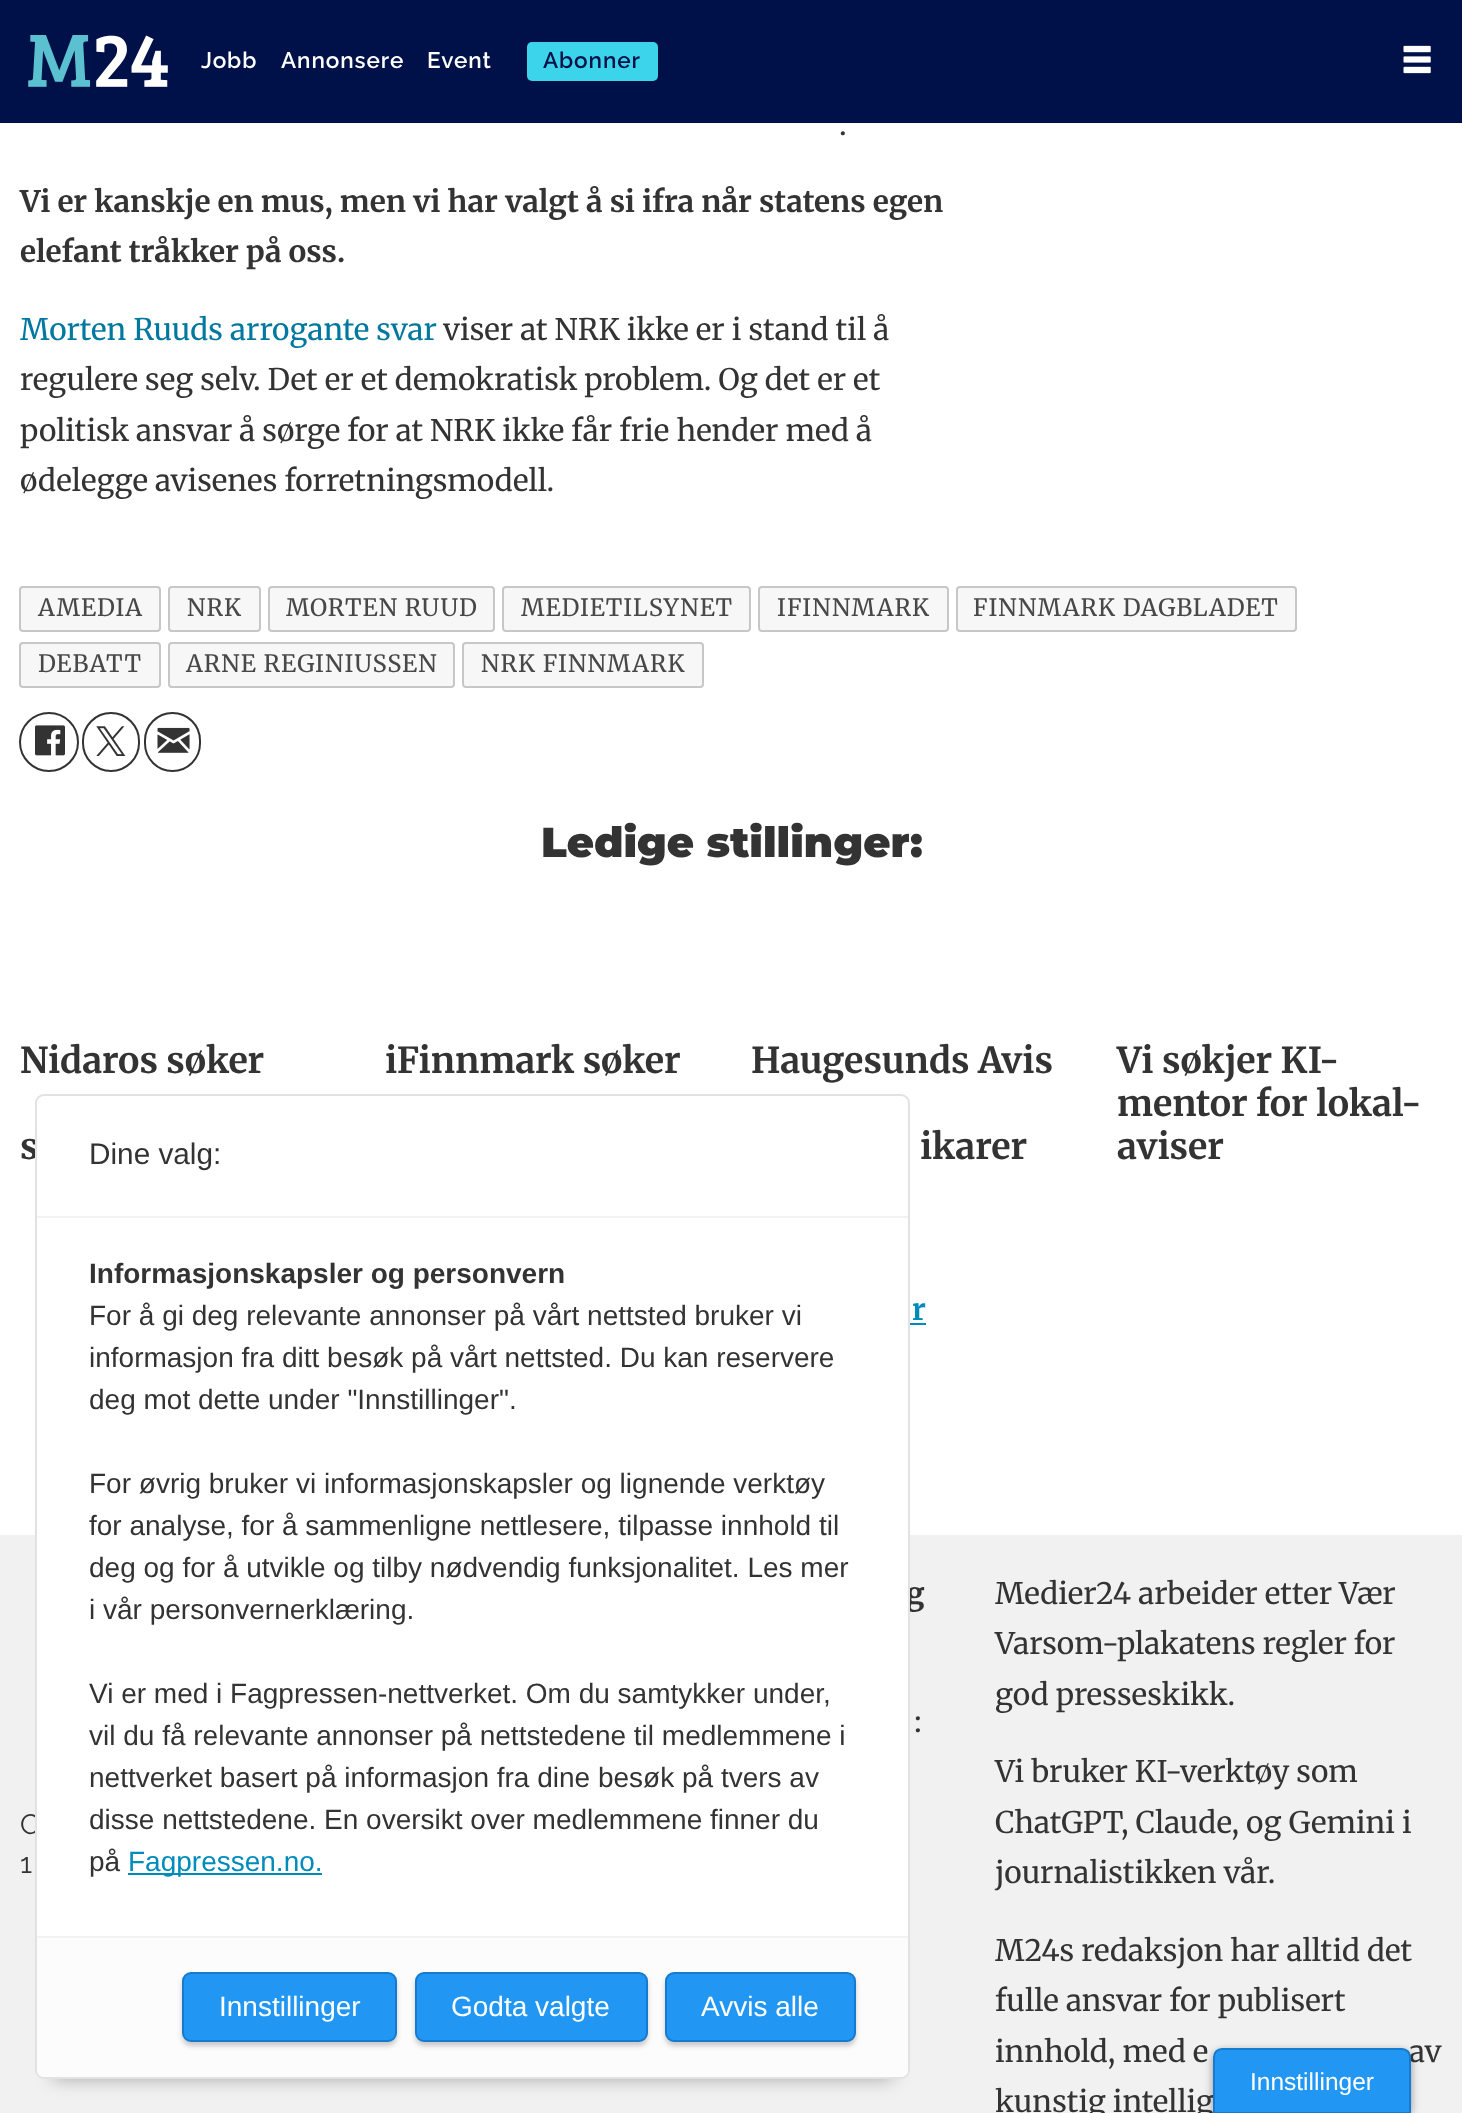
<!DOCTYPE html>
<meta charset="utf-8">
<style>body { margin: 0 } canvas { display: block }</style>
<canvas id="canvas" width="1462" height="2113"></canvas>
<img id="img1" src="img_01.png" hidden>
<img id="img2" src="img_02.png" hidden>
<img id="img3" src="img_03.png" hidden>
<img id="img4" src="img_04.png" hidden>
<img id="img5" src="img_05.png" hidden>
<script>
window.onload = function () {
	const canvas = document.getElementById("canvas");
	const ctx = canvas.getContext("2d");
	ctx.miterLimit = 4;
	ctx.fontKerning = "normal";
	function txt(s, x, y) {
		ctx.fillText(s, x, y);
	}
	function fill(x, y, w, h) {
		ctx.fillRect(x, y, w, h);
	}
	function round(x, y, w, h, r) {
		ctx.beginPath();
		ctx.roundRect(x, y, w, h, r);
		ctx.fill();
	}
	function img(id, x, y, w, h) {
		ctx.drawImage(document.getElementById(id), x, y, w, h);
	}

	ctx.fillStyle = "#FFFFFF";
	fill(0, 0, 1462, 2113);
	ctx.fillStyle = "#00114A";
	fill(0, 0, 1462, 123);
	img("img1", 28, 35, 140, 52);
	ctx.fillStyle = "#3CD4EB";
	round(527, 42, 131, 39, 5);
	img("img2", 1403, 45, 28, 29);
	ctx.fillStyle = "#F7F7F7";
	ctx.beginPath();
	ctx.roundRect(20, 587, 140, 44, 3);
	ctx.fill();
	ctx.strokeStyle = "#C7C7C7";
	ctx.lineWidth = 2;
	ctx.stroke();
	ctx.beginPath();
	ctx.roundRect(169, 587, 91, 44, 3);
	ctx.fill();
	ctx.stroke();
	ctx.beginPath();
	ctx.roundRect(269, 587, 225, 44, 3);
	ctx.fill();
	ctx.stroke();
	ctx.beginPath();
	ctx.roundRect(503, 587, 247, 44, 3);
	ctx.fill();
	ctx.stroke();
	ctx.beginPath();
	ctx.roundRect(759, 587, 189, 44, 3);
	ctx.fill();
	ctx.stroke();
	ctx.beginPath();
	ctx.roundRect(957, 587, 339, 44, 3);
	ctx.fill();
	ctx.stroke();
	ctx.beginPath();
	ctx.roundRect(20, 643, 140, 44, 3);
	ctx.fill();
	ctx.stroke();
	ctx.beginPath();
	ctx.roundRect(169, 643, 285, 44, 3);
	ctx.fill();
	ctx.stroke();
	ctx.beginPath();
	ctx.roundRect(463, 643, 240, 44, 3);
	ctx.fill();
	ctx.stroke();
	ctx.beginPath();
	ctx.arc(49, 742, 29, 0, Math.PI * 2);
	ctx.strokeStyle = "#333333";
	ctx.stroke();
	img("img3", 35, 725, 30, 31);
	ctx.beginPath();
	ctx.roundRect(83, 713, 56, 58, 28);
	ctx.stroke();
	img("img4", 96, 726, 30, 30);
	ctx.beginPath();
	ctx.roundRect(145, 713, 55, 58, 27.5);
	ctx.stroke();
	img("img5", 157, 727, 33, 26);
	ctx.fillStyle = "#008CBA";
	fill(910, 1323, 16, 2);
	ctx.fillStyle = "#F1F1F1";
	fill(0, 1535, 1462, 578);
	ctx.fillStyle = "rgba(0, 0, 0, 0.3)";
	ctx.filter = "blur(9px)";
	ctx.beginPath();
	ctx.rect(53, 1129, 840, 950);
	ctx.fill();
	ctx.filter = "none";
	ctx.fillStyle = "rgba(0, 0, 0, 0.4)";
	ctx.filter = "blur(4.5px)";
	ctx.beginPath();
	ctx.roundRect(1213, 2051, 198, 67, 9);
	ctx.fill();
	ctx.filter = "none";
	ctx.letterSpacing = "0.9px";
	ctx.font = "600 22.5px Raleway";
	ctx.fillStyle = "#FFFFFF";
	txt("Jobb", 201, 68);
	txt("Annonsere", 281, 68);
	txt("Event", 427, 68);
	ctx.fillStyle = "#00114A";
	txt("Abonner", 543, 68);
	ctx.letterSpacing = "0px";
	ctx.font = "29.75px Merriweather";
	ctx.fillStyle = "#333333";
	txt(".", 839, 135);
	ctx.font = "bold 29.75px Merriweather";
	txt("Vi er kanskje en mus, men vi har valgt å si ifra når statens egen", 20, 212);
	txt("elefant tråkker på oss.", 20, 262);
	ctx.font = "29.75px Merriweather";
	ctx.fillStyle = "#0078A0";
	txt("Morten Ruuds arrogante svar", 20, 340);
	ctx.fillStyle = "#333333";
	txt("viser at NRK ikke er i stand til å", 443, 340);
	txt("regulere seg selv. Det er et demokratisk problem. Og det er et", 20, 390);
	txt("politisk ansvar å sørge for at NRK ikke får frie hender med å", 20, 441);
	txt("ødelegge avisenes forretningsmodell.", 20, 491);
	ctx.letterSpacing = "1px";
	ctx.font = "23.75px Merriweather";
	ctx.fillStyle = "#484848";
	txt("AMEDIA", 38, 616);
	txt("NRK", 187, 616);
	txt("MORTEN RUUD", 286, 616);
	txt("MEDIETILSYNET", 521, 616);
	txt("IFINNMARK", 777, 616);
	txt("FINNMARK DAGBLADET", 973, 616);
	txt("DEBATT", 38, 672);
	txt("ARNE REGINIUSSEN", 186, 672);
	txt("NRK FINNMARK", 481, 672);
	ctx.letterSpacing = "0px";
	ctx.font = "900 41.75px Montserrat";
	ctx.fillStyle = "#333333";
	txt("Ledige stillinger:", 541, 857);
	ctx.font = "bold 35.75px Merriweather";
	txt("Nidaros søker", 20, 1073);
	txt("s", 20, 1159);
	txt("iFinnmark søker", 385, 1073);
	txt("Haugesunds Avis", 751, 1073);
	txt("ikarer", 920, 1159);
	txt("Vi søkjer KI-", 1117, 1073);
	txt("mentor for lokal-", 1117, 1116);
	txt("aviser", 1117, 1159);
	ctx.font = "bold 29.75px Merriweather";
	ctx.fillStyle = "#008CBA";
	txt("r", 912, 1320);
	ctx.fillStyle = "#333333";
	txt("g", 906, 1604);
	ctx.font = "29.75px Merriweather";
	txt(":", 914, 1732);
	txt("Medier24 arbeider etter Vær", 995, 1604);
	txt("Varsom-plakatens regler for", 995, 1654);
	txt("god presseskikk.", 995, 1705);
	txt("Vi bruker KI-verktøy som", 995, 1782);
	txt("ChatGPT, Claude, og Gemini i", 995, 1833);
	txt("journalistikken vår.", 995, 1883);
	txt("M24s redaksjon har alltid det", 995, 1961);
	txt("fulle ansvar for publisert", 995, 2011);
	txt("innhold, med e", 995, 2062);
	txt("av", 1409, 2062);
	txt("kunstig intellig", 995, 2112);
	ctx.font = "28px Raleway";
	txt("O", 20, 1834);
	ctx.fillStyle = "#FFFFFF";
	ctx.beginPath();
	ctx.roundRect(36, 1095, 873, 983, 8);
	ctx.fill();
	ctx.strokeStyle = "#E2E2E2";
	ctx.stroke();
	ctx.fillStyle = "#FCFCFC";
	ctx.beginPath();
	ctx.roundRect(37, 1936, 871, 141, [0, 0, 7, 7]);
	ctx.fill();
	ctx.fillStyle = "rgba(0, 0, 0, 0.2)";
	ctx.filter = "blur(2.5px)";
	ctx.beginPath();
	ctx.roundRect(182, 1976, 215, 70, 9);
	ctx.fill();
	ctx.filter = "none";
	ctx.fillStyle = "#2196F3";
	ctx.beginPath();
	ctx.roundRect(183, 1973, 213, 68, 8);
	ctx.fill();
	ctx.strokeStyle = "#157BCE";
	ctx.stroke();
	ctx.font = "28px Liberation Sans";
	ctx.fillStyle = "#FFFFFF";
	txt("Innstillinger", 219, 2016);
	ctx.fillStyle = "rgba(0, 0, 0, 0.2)";
	ctx.filter = "blur(2.5px)";
	ctx.beginPath();
	ctx.roundRect(415, 1976, 233, 70, 9);
	ctx.fill();
	ctx.filter = "none";
	ctx.fillStyle = "#2196F3";
	ctx.beginPath();
	ctx.roundRect(416, 1973, 231, 68, 8);
	ctx.fill();
	ctx.stroke();
	ctx.fillStyle = "#FFFFFF";
	txt("Godta valgte", 451, 2016);
	ctx.fillStyle = "rgba(0, 0, 0, 0.2)";
	ctx.filter = "blur(2.5px)";
	ctx.beginPath();
	ctx.roundRect(665, 1976, 191, 70, 9);
	ctx.fill();
	ctx.filter = "none";
	ctx.fillStyle = "#2196F3";
	ctx.beginPath();
	ctx.roundRect(666, 1973, 189, 68, 8);
	ctx.fill();
	ctx.stroke();
	ctx.fillStyle = "#FFFFFF";
	txt("Avvis alle", 701, 2016);
	ctx.fillStyle = "#F2F2F2";
	fill(37, 1936, 871, 2);
	ctx.fillStyle = "#008CBA";
	fill(128, 1873, 194, 2);
	txt("Fagpressen.no.", 128, 1871);
	ctx.fillStyle = "#333333";
	txt("på", 89, 1871);
	txt("disse nettstedene. En oversikt over medlemmene finner du", 89, 1829);
	txt("nettverket basert på informasjon fra dine besøk på tvers av", 89, 1787);
	txt("vil du få relevante annonser på nettstedene til medlemmene i", 89, 1745);
	txt("Vi er med i Fagpressen-nettverket. Om du samtykker under,", 89, 1703);
	txt("i vår personvernerklæring.", 89, 1619);
	txt("deg og for å utvikle og tilby nødvendig funksjonalitet. Les mer", 89, 1577);
	txt("for analyse, for å sammenligne nettlesere, tilpasse innhold til", 89, 1535);
	txt("For øvrig bruker vi informasjonskapsler og lignende verktøy", 89, 1493);
	txt("deg mot dette under \"Innstillinger\".", 89, 1409);
	txt("informasjon fra ditt besøk på vårt nettsted. Du kan reservere", 89, 1367);
	txt("For å gi deg relevante annonser på vårt nettsted bruker vi", 89, 1325);
	ctx.font = "bold 28px Liberation Sans";
	txt("Informasjonskapsler og personvern", 89, 1283);
	ctx.font = "29.75px Liberation Sans";
	txt("Dine valg:", 89, 1164);
	ctx.fillStyle = "#F2F2F2";
	fill(37, 1216, 871, 2);
	ctx.font = "28px Raleway";
	ctx.fillStyle = "#333333";
	txt("1", 20, 1873);
	ctx.fillStyle = "#2196F3";
	ctx.beginPath();
	ctx.moveTo(1222, 2049);
	ctx.lineTo(1402, 2049);
	ctx.bezierCurveTo(1406.5, 2049, 1410, 2052.5, 1410, 2057);
	ctx.lineTo(1410, 2113);
	ctx.lineTo(1214, 2113);
	ctx.lineTo(1214, 2057);
	ctx.bezierCurveTo(1214, 2052.5, 1217.5, 2049, 1222, 2049);
	ctx.closePath();
	ctx.fill();
	ctx.stroke();
	ctx.font = "24.5px Liberation Sans";
	ctx.fillStyle = "#FFFFFF";
	txt("Innstillinger", 1250, 2090);
};
</script>
